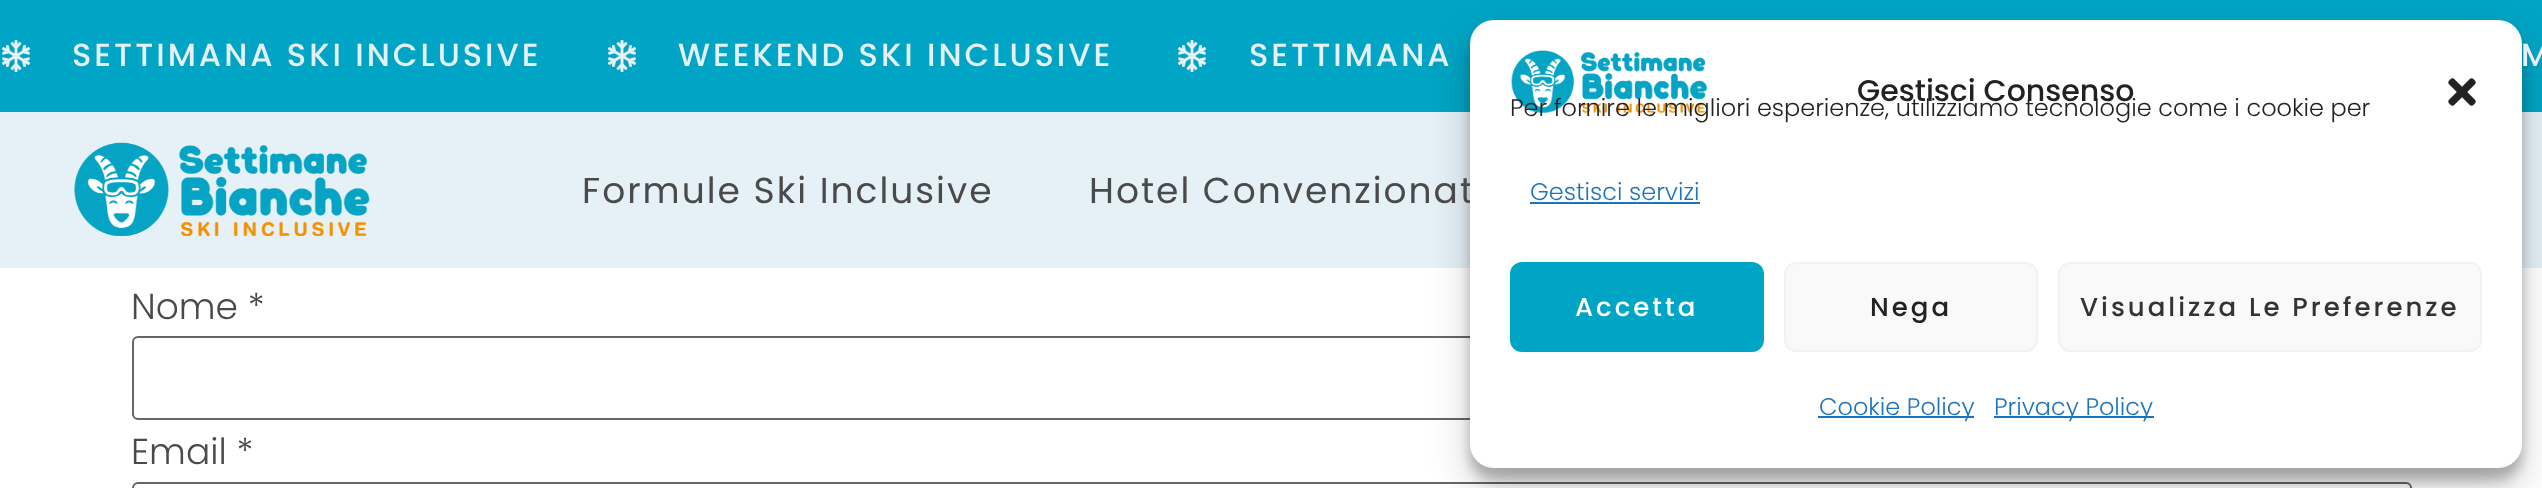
<!DOCTYPE html>
<meta charset="utf-8">
<style>body { margin: 0 } canvas { display: block }</style>
<canvas id="canvas" width="2542" height="488"></canvas>
<img id="img1" src="img_01.png" hidden>
<img id="img2" src="img_02.png" hidden>
<img id="img3" src="img_03.png" hidden>
<img id="img4" src="img_04.png" hidden>
<script>
window.onload = function () {
	const canvas = document.getElementById("canvas");
	const ctx = canvas.getContext("2d");
	ctx.miterLimit = 4;
	ctx.fontKerning = "normal";
	function txt(s, x, y) {
		ctx.fillText(s, x, y);
	}
	function fill(x, y, w, h) {
		ctx.fillRect(x, y, w, h);
	}
	function round(x, y, w, h, r) {
		ctx.beginPath();
		ctx.roundRect(x, y, w, h, r);
		ctx.fill();
	}
	function img(id, x, y, w, h) {
		ctx.drawImage(document.getElementById(id), x, y, w, h);
	}

	ctx.fillStyle = "#FFFFFF";
	fill(0, 0, 2542, 488);
	ctx.fillStyle = "#00A4C4";
	fill(0, 0, 2542, 112);
	img("img1", 2, 40, 28, 32);
	img("img1", 608, 40, 28, 32);
	img("img1", 1178, 40, 28, 32);
	ctx.fillStyle = "#E5F1F7";
	fill(0, 112, 2542, 156);
	img("img2", 74, 142, 296, 94);
	ctx.beginPath();
	ctx.roundRect(133, 337, 2278, 82, 5);
	ctx.strokeStyle = "#666666";
	ctx.lineWidth = 2;
	ctx.stroke();
	ctx.beginPath();
	ctx.roundRect(133, 483, 2278, 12, 5);
	ctx.stroke();
	ctx.fillStyle = "rgba(0, 0, 0, 0.23)";
	ctx.filter = "blur(6px)";
	ctx.beginPath();
	ctx.roundRect(1470, 32, 1052, 448, 24);
	ctx.fill();
	ctx.filter = "none";
	ctx.fillStyle = "rgba(0, 0, 0, 0.19)";
	ctx.filter = "blur(20px)";
	ctx.beginPath();
	ctx.roundRect(1470, 40, 1052, 448, 24);
	ctx.fill();
	ctx.filter = "none";
	ctx.letterSpacing = "3px";
	ctx.font = "500 32px Poppins";
	ctx.fillStyle = "#E5F1F7";
	txt("SETTIMANA SKI INCLUSIVE", 72, 66);
	txt("WEEKEND SKI INCLUSIVE", 678, 66);
	txt("SETTIMANA", 1249, 66);
	txt("M", 2521, 66);
	ctx.letterSpacing = "2px";
	ctx.font = "36px Poppins";
	ctx.fillStyle = "#4A4A4A";
	txt("Formule Ski Inclusive", 582, 203);
	txt("Hotel Convenzionat", 1089, 203);
	ctx.letterSpacing = "0px";
	ctx.font = "300 36px Poppins";
	txt("Nome *", 131, 319);
	txt("Email *", 131, 464);
	ctx.fillStyle = "#FFFFFF";
	round(1470, 20, 1052, 448, 24);
	img("img3", 1511, 50, 196, 64);
	ctx.font = "500 30px Poppins";
	ctx.fillStyle = "#222222";
	txt("Gestisci Consenso", 1857, 101);
	img("img4", 2448, 78, 28, 28);
	ctx.font = "300 24px Poppins";
	txt("Per fornire le migliori esperienze, utilizziamo tecnologie come i cookie per", 1510, 116);
	ctx.fillStyle = "#1E73BE";
	txt("Gestisci servizi", 1530, 200);
	fill(1530, 202, 170, 2);
	ctx.fillStyle = "#00A4C4";
	ctx.beginPath();
	ctx.roundRect(1511, 263, 252, 88, 11);
	ctx.fill();
	ctx.strokeStyle = "#00A4C4";
	ctx.stroke();
	ctx.letterSpacing = "3px";
	ctx.font = "500 26px Poppins";
	ctx.fillStyle = "#FFFFFF";
	txt("Accetta", 1575, 316);
	ctx.fillStyle = "#F9F9F9";
	ctx.beginPath();
	ctx.roundRect(1785, 263, 252, 88, 11);
	ctx.fill();
	ctx.strokeStyle = "#F2F2F2";
	ctx.stroke();
	ctx.fillStyle = "#222222";
	txt("Nega", 1870, 316);
	ctx.fillStyle = "#F9F9F9";
	ctx.beginPath();
	ctx.roundRect(2059, 263, 422, 88, 11);
	ctx.fill();
	ctx.stroke();
	ctx.fillStyle = "#333333";
	txt("Visualizza Le Preferenze", 2080, 316);
	ctx.fillStyle = "#1E73BE";
	fill(1818, 416, 156, 2);
	ctx.letterSpacing = "0px";
	ctx.font = "300 24px Poppins";
	txt("Cookie Policy", 1819, 415);
	fill(1994, 416, 160, 2);
	txt("Privacy Policy", 1994, 415);
};
</script>
